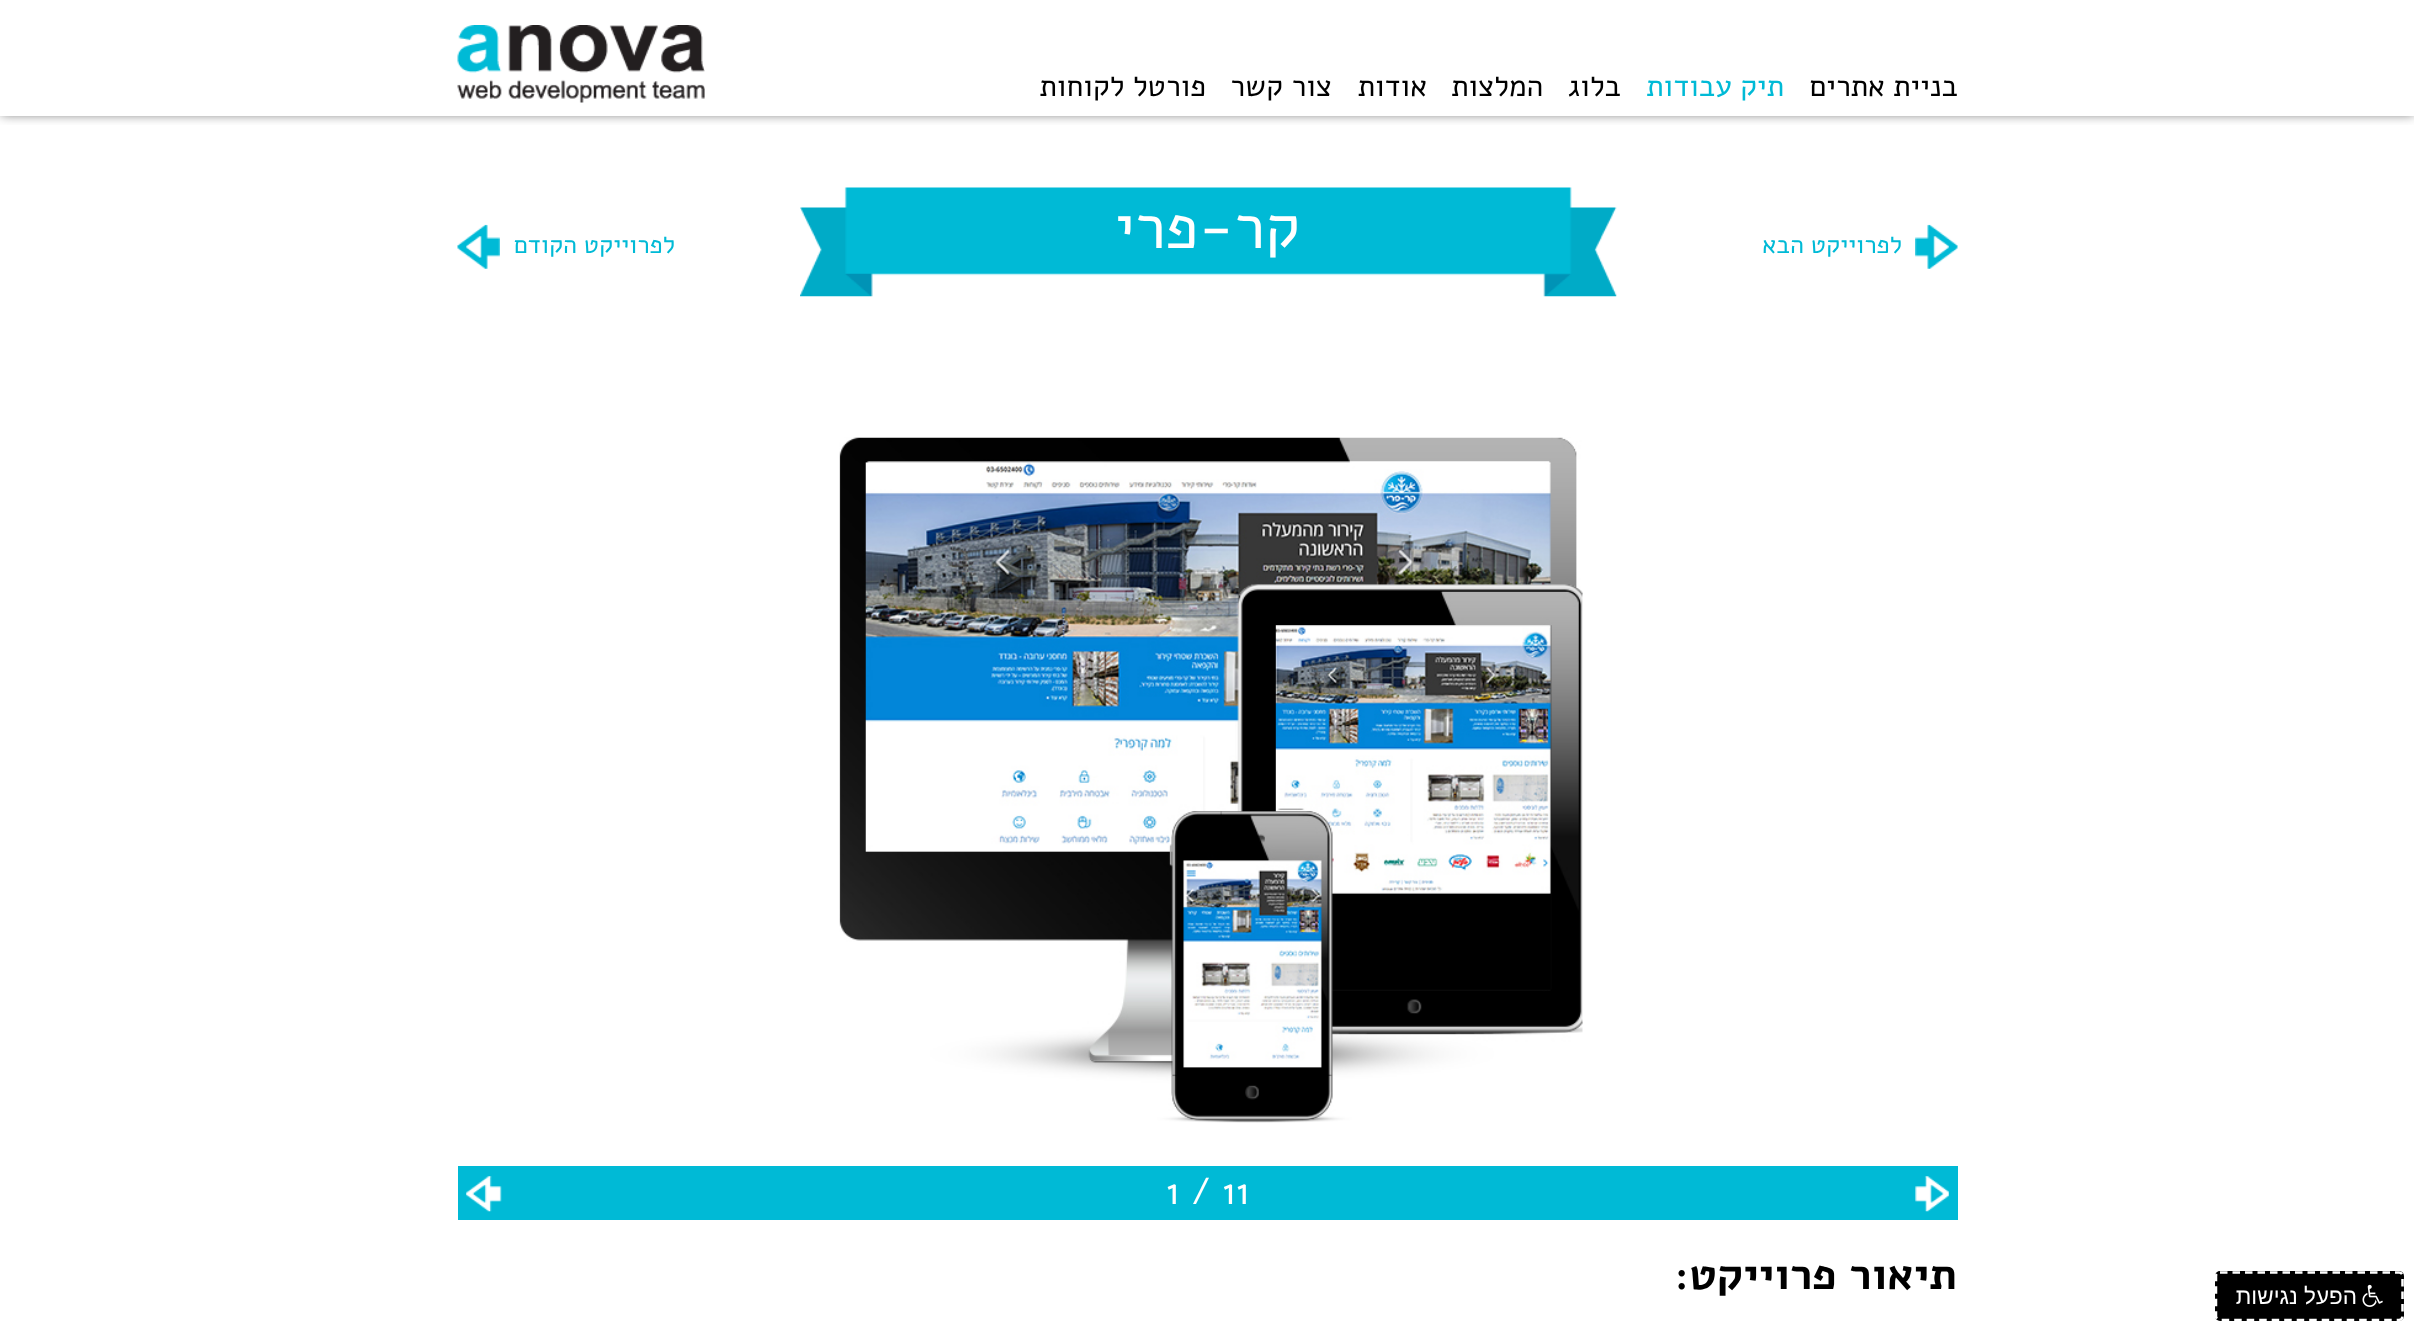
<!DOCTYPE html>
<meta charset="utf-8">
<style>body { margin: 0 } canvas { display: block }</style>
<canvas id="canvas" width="2414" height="1332"></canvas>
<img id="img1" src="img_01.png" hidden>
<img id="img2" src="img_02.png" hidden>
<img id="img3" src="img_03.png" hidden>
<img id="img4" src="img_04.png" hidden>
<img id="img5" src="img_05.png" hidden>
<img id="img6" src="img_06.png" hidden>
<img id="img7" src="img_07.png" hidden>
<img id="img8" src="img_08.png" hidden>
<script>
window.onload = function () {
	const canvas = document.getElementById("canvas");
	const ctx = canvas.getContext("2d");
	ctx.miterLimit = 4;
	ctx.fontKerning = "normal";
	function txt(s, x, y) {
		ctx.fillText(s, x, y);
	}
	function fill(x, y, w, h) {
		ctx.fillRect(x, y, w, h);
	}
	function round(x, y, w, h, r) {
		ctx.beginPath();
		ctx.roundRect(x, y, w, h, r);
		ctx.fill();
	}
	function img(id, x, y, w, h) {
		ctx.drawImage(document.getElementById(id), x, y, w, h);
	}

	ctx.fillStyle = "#FFFFFF";
	fill(0, 0, 2414, 1332);
	ctx.fillStyle = "#000000";
	round(2215, 1271, 189, 50, 5);
	ctx.beginPath();
	ctx.moveTo(2220, 1272.5);
	ctx.lineTo(2399, 1272.5);
	ctx.bezierCurveTo(2401, 1272.5, 2402.5, 1274, 2402.5, 1276);
	ctx.lineTo(2402.5, 1316);
	ctx.bezierCurveTo(2402.5, 1318.5, 2401, 1320, 2399, 1320);
	ctx.lineTo(2220, 1320);
	ctx.bezierCurveTo(2218, 1320, 2216, 1318.5, 2216, 1316);
	ctx.lineTo(2216, 1276);
	ctx.bezierCurveTo(2216, 1274, 2218, 1272.5, 2220, 1272.5);
	ctx.closePath();
	ctx.strokeStyle = "#FFFFFF";
	ctx.lineWidth = 2.5;
	ctx.setLineDash([7.5, 5]);
	ctx.stroke();
	img("img1", 2362, 1284, 21, 23);
	ctx.save();
	ctx.beginPath();
	ctx.rect(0, 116, 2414, 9);
	ctx.clip();
	ctx.fillStyle = "rgba(0, 0, 0, 0.6)";
	ctx.filter = "blur(6px)";
	ctx.beginPath();
	ctx.rect(1, 0, 2413, 114);
	ctx.fill();
	ctx.filter = "none";
	ctx.restore();
	img("img2", 457, 25, 248, 78);
	img("img3", 800, 187, 817, 110);
	img("img4", 1915, 224, 43, 45);
	img("img5", 457, 224, 43, 45);
	img("img6", 839, 437, 744, 686);
	ctx.fillStyle = "#00BAD6";
	fill(458, 1166, 1500, 54);
	img("img7", 1915, 1176, 34, 36);
	img("img8", 466, 1176, 36, 36);
	ctx.direction = "rtl";
	ctx.font = "22.5px Liberation Sans";
	ctx.fillStyle = "#FFFFFF";
	txt("הפעל נגישות", 2357, 1304);
	ctx.font = "30px Alef";
	ctx.fillStyle = "#000000";
	txt("בניית אתרים", 1958, 96);
	ctx.fillStyle = "#00BAD6";
	txt("תיק עבודות", 1784, 96);
	ctx.fillStyle = "#000000";
	txt("בלוג", 1621, 96);
	txt("המלצות", 1543, 96);
	txt("אודות", 1427, 96);
	txt("צור קשר", 1332, 96);
	txt("פורטל לקוחות", 1206, 96);
	ctx.font = "62.5px Alef";
	ctx.fillStyle = "#FFFFFF";
	txt("קר-פרי", 1300, 248);
	ctx.font = "25px Alef";
	ctx.fillStyle = "#00BAD6";
	txt("לפרוייקט הבא", 1902, 253);
	txt("לפרוייקט הקודם", 675, 253);
	ctx.direction = "ltr";
	ctx.font = "37.5px Alef";
	ctx.fillStyle = "#FFFFFF";
	txt("1 / 11", 1166, 1204);
	ctx.direction = "rtl";
	ctx.font = "bold 43.75px Alef";
	ctx.fillStyle = "#000000";
	txt("תיאור פרוייקט:", 1957, 1289);
};
</script>
